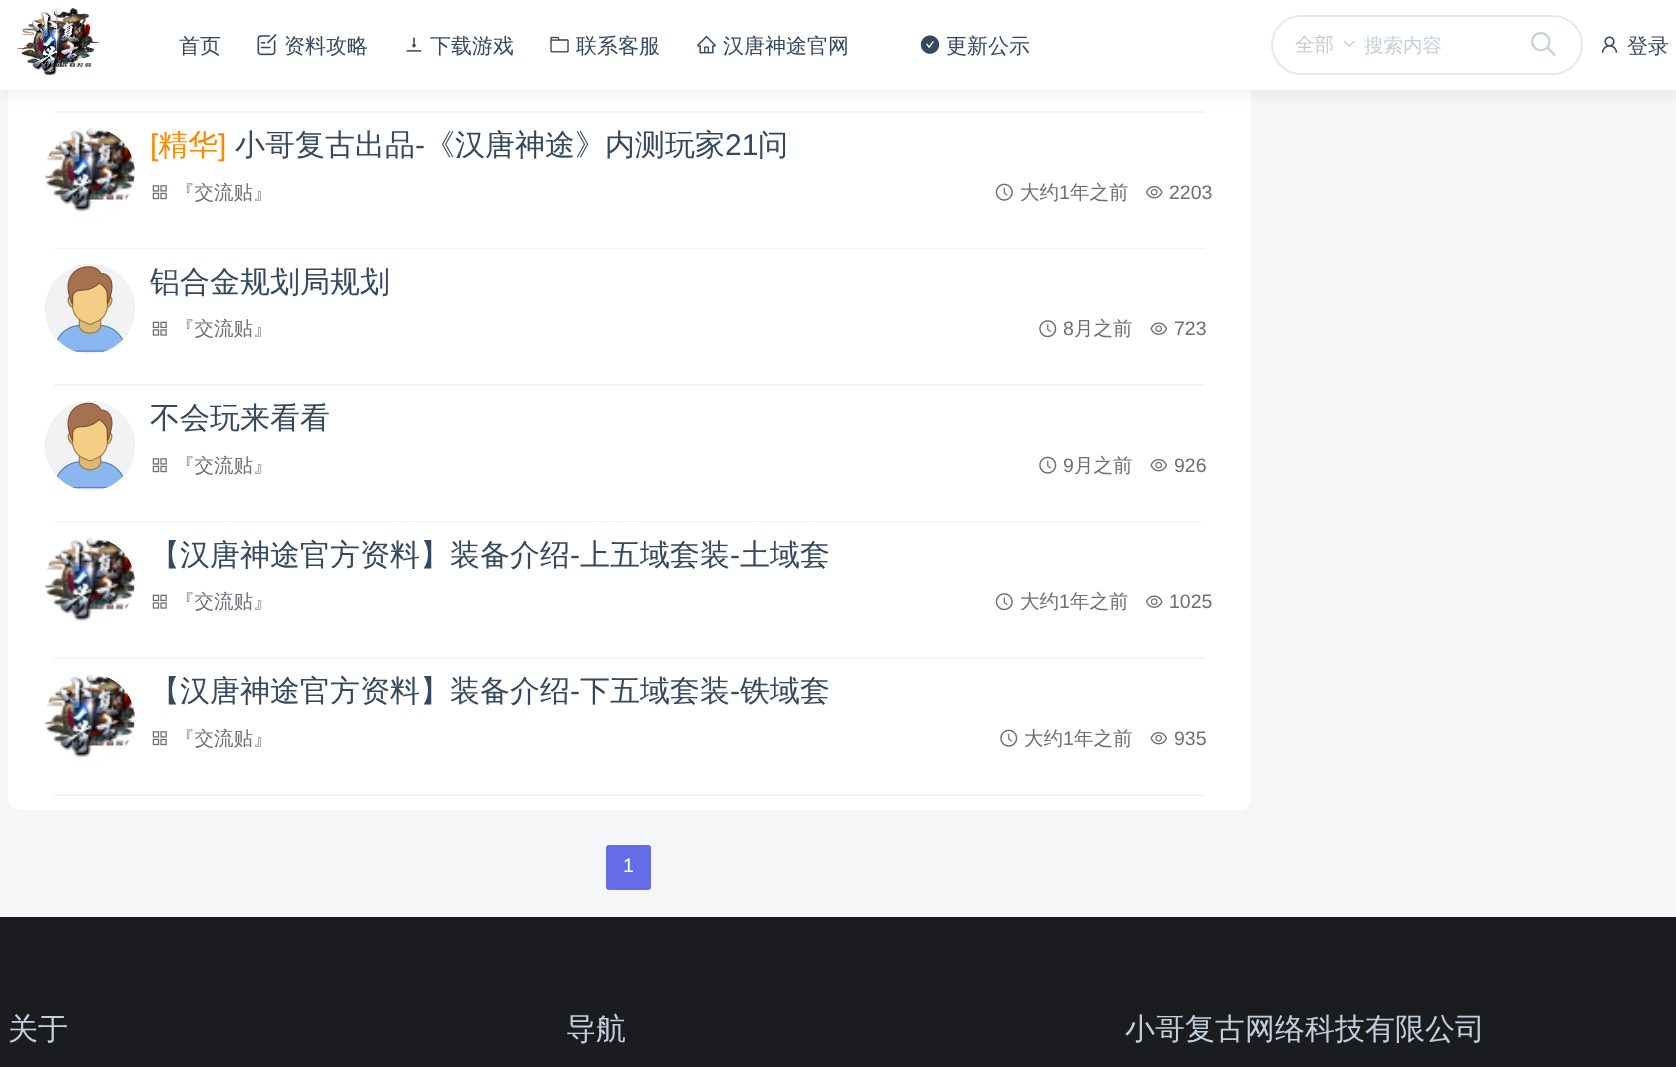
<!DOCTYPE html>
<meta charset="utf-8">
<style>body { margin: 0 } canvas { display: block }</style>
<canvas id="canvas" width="1676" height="1067"></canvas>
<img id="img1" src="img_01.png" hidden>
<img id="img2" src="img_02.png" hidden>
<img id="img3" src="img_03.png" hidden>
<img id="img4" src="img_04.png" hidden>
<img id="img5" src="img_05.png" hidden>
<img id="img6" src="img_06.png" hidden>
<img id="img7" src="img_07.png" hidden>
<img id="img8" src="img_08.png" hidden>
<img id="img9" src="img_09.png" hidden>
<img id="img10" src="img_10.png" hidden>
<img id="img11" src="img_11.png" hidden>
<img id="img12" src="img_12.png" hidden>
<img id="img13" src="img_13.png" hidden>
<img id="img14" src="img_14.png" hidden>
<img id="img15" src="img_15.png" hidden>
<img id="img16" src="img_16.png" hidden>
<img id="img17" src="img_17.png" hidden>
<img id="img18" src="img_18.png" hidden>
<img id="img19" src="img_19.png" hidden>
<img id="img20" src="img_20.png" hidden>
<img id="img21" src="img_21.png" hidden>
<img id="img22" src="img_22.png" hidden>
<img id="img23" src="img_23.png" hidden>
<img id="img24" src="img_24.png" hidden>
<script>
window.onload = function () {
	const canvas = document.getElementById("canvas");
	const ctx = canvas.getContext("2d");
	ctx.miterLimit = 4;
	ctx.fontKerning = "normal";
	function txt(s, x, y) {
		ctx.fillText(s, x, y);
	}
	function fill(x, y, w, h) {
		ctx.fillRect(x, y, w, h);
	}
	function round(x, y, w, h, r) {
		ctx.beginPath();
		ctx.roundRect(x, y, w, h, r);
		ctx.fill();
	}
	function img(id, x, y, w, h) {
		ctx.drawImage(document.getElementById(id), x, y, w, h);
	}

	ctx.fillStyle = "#F4F6F8";
	fill(0, 0, 1676, 1067);
	ctx.fillStyle = "#FFFFFF";
	round(8, -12, 1243, 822, 12);
	ctx.fillStyle = "#F3F4F6";
	fill(54, 111, 1151, 2);
	ctx.fillStyle = "rgba(0, 0, 0, 0.05)";
	ctx.filter = "blur(6px)";
	ctx.beginPath();
	ctx.rect(0, 6, 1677, 90);
	ctx.fill();
	ctx.filter = "none";
	ctx.fillStyle = "#FFFFFF";
	fill(0, 0, 1676, 90);
	img("img1", 17, 7, 83, 69);
	img("img2", 257, 34, 20, 22);
	img("img3", 406, 37, 16, 15);
	img("img4", 550, 36, 19, 17);
	img("img5", 697, 35, 19, 19);
	img("img6", 920, 35, 20, 19);
	ctx.beginPath();
	ctx.roundRect(1272, 16, 310, 58, 29);
	ctx.strokeStyle = "#E5E9EE";
	ctx.lineWidth = 2;
	ctx.stroke();
	img("img7", 1344, 40, 11, 7);
	img("img8", 1531, 32, 25, 25);
	img("img9", 1601, 36, 17, 17);
	ctx.save();
	ctx.beginPath();
	ctx.roundRect(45, 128, 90, 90, 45);
	ctx.clip();
	ctx.beginPath();
	ctx.moveTo(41, 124);
	ctx.lineTo(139, 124);
	ctx.lineTo(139, 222);
	ctx.lineTo(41, 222);
	ctx.closePath();
	ctx.moveTo(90, 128);
	ctx.bezierCurveTo(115, 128, 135, 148, 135, 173);
	ctx.bezierCurveTo(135, 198, 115, 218, 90, 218);
	ctx.bezierCurveTo(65, 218, 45, 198, 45, 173);
	ctx.bezierCurveTo(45, 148, 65, 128, 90, 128);
	ctx.closePath();
	ctx.clip("evenodd");
	ctx.fillStyle = "#C4CFDB";
	ctx.filter = "blur(1px)";
	ctx.beginPath();
	ctx.roundRect(45, 128, 90, 90, 45);
	ctx.fill();
	ctx.filter = "none";
	ctx.restore();
	img("img10", 45, 128, 90, 84);
	img("img11", 152, 185, 15, 15);
	img("img12", 995, 183, 18, 18);
	img("img13", 1146, 186, 17, 13);
	ctx.fillStyle = "#F3F4F6";
	fill(54, 248, 1151, 1);
	ctx.save();
	ctx.beginPath();
	ctx.roundRect(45, 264, 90, 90, 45);
	ctx.clip();
	ctx.fillStyle = "#C4CFDB";
	ctx.filter = "blur(1px)";
	ctx.beginPath();
	ctx.roundRect(45, 264, 90, 90, 45);
	ctx.fill();
	ctx.filter = "none";
	ctx.restore();
	img("img14", 45, 264, 90, 90);
	img("img15", 152, 321, 15, 15);
	img("img16", 1039, 320, 18, 18);
	img("img17", 1150, 322, 17, 13);
	fill(54, 384, 1151, 2);
	ctx.save();
	ctx.beginPath();
	ctx.roundRect(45, 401, 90, 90, 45);
	ctx.clip();
	ctx.fillStyle = "#C4CFDB";
	ctx.filter = "blur(1px)";
	ctx.beginPath();
	ctx.roundRect(45, 401, 90, 90, 45);
	ctx.fill();
	ctx.filter = "none";
	ctx.restore();
	img("img18", 45, 401, 90, 90);
	img("img11", 152, 458, 15, 15);
	img("img19", 1039, 456, 18, 18);
	img("img20", 1150, 459, 17, 13);
	fill(54, 521, 1151, 1);
	img("img21", 45, 537, 90, 84);
	img("img15", 152, 594, 15, 15);
	img("img22", 995, 593, 18, 18);
	img("img23", 1146, 595, 17, 13);
	fill(54, 657, 1151, 2);
	ctx.save();
	ctx.beginPath();
	ctx.roundRect(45, 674, 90, 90, 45);
	ctx.clip();
	ctx.beginPath();
	ctx.moveTo(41, 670);
	ctx.lineTo(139, 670);
	ctx.lineTo(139, 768);
	ctx.lineTo(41, 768);
	ctx.closePath();
	ctx.moveTo(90, 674);
	ctx.bezierCurveTo(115, 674, 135, 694, 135, 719);
	ctx.bezierCurveTo(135, 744, 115, 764, 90, 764);
	ctx.bezierCurveTo(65, 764, 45, 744, 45, 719);
	ctx.bezierCurveTo(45, 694, 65, 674, 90, 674);
	ctx.closePath();
	ctx.clip("evenodd");
	ctx.fillStyle = "#C4CFDB";
	ctx.filter = "blur(1px)";
	ctx.beginPath();
	ctx.roundRect(45, 674, 90, 90, 45);
	ctx.fill();
	ctx.filter = "none";
	ctx.restore();
	img("img24", 45, 674, 90, 84);
	img("img11", 152, 731, 15, 15);
	img("img19", 1000, 729, 18, 18);
	img("img20", 1150, 732, 17, 13);
	fill(54, 794, 1151, 2);
	ctx.fillStyle = "#656DE6";
	round(606, 845, 45, 45, 3);
	ctx.fillStyle = "#1B1C20";
	fill(0, 917, 1676, 150);
	ctx.font = "500 21px WenQuanYi Zen Hei";
	ctx.fillStyle = "#34495E";
	txt("首页", 179, 53);
	txt("资料攻略", 284, 53);
	txt("下载游戏", 430, 53);
	txt("联系客服", 576, 53);
	txt("汉唐神途官网", 723, 53);
	txt("更新公示", 946, 53);
	ctx.font = "500 19.5px WenQuanYi Zen Hei";
	ctx.fillStyle = "#C6CACD";
	txt("全部", 1295, 51);
	ctx.fillStyle = "#C4CFDB";
	txt("搜索内容", 1364, 52);
	ctx.font = "500 21px WenQuanYi Zen Hei";
	ctx.fillStyle = "#34495E";
	txt("登录", 1627, 53);
	ctx.font = "30px Liberation Sans";
	ctx.fillStyle = "#FC8800";
	txt("[", 150, 155);
	ctx.font = "500 30px WenQuanYi Zen Hei";
	txt("精华", 158, 155);
	ctx.font = "30px Liberation Sans";
	txt("]", 218, 155);
	ctx.font = "500 30px WenQuanYi Zen Hei";
	ctx.fillStyle = "#34495E";
	txt("小哥复古出品", 235, 155);
	ctx.font = "30px Liberation Sans";
	txt("-", 415, 155);
	ctx.font = "500 30px WenQuanYi Zen Hei";
	txt("《汉唐神途》内测玩家", 425, 155);
	ctx.font = "30px Liberation Sans";
	txt("21", 725, 155);
	ctx.font = "500 30px WenQuanYi Zen Hei";
	txt("问", 758, 155);
	ctx.font = "500 19.5px WenQuanYi Zen Hei";
	ctx.fillStyle = "#6B7075";
	txt("『交流贴』", 175, 199);
	txt("大约", 1020, 199);
	ctx.font = "19.5px Liberation Sans";
	txt("1", 1059, 199);
	ctx.font = "500 19.5px WenQuanYi Zen Hei";
	txt("年之前", 1070, 199);
	ctx.font = "19.5px Liberation Sans";
	txt("2203", 1169, 199);
	ctx.font = "500 30px WenQuanYi Zen Hei";
	ctx.fillStyle = "#34495E";
	txt("铝合金规划局规划", 150, 292);
	ctx.font = "500 19.5px WenQuanYi Zen Hei";
	ctx.fillStyle = "#6B7075";
	txt("『交流贴』", 175, 335);
	ctx.font = "19.5px Liberation Sans";
	txt("8", 1063, 335);
	ctx.font = "500 19.5px WenQuanYi Zen Hei";
	txt("月之前", 1074, 335);
	ctx.font = "19.5px Liberation Sans";
	txt("723", 1174, 335);
	ctx.font = "500 30px WenQuanYi Zen Hei";
	ctx.fillStyle = "#34495E";
	txt("不会玩来看看", 150, 428);
	ctx.font = "500 19.5px WenQuanYi Zen Hei";
	ctx.fillStyle = "#6B7075";
	txt("『交流贴』", 175, 472);
	ctx.font = "19.5px Liberation Sans";
	txt("9", 1063, 472);
	ctx.font = "500 19.5px WenQuanYi Zen Hei";
	txt("月之前", 1074, 472);
	ctx.font = "19.5px Liberation Sans";
	txt("926", 1174, 472);
	ctx.font = "500 30px WenQuanYi Zen Hei";
	ctx.fillStyle = "#34495E";
	txt("【汉唐神途官方资料】装备介绍", 150, 565);
	ctx.font = "30px Liberation Sans";
	txt("-", 570, 565);
	ctx.font = "500 30px WenQuanYi Zen Hei";
	txt("上五域套装", 580, 565);
	ctx.font = "30px Liberation Sans";
	txt("-", 730, 565);
	ctx.font = "500 30px WenQuanYi Zen Hei";
	txt("土域套", 740, 565);
	ctx.font = "500 19.5px WenQuanYi Zen Hei";
	ctx.fillStyle = "#6B7075";
	txt("『交流贴』", 175, 608);
	txt("大约", 1020, 608);
	ctx.font = "19.5px Liberation Sans";
	txt("1", 1059, 608);
	ctx.font = "500 19.5px WenQuanYi Zen Hei";
	txt("年之前", 1070, 608);
	ctx.font = "19.5px Liberation Sans";
	txt("1025", 1169, 608);
	ctx.font = "500 30px WenQuanYi Zen Hei";
	ctx.fillStyle = "#34495E";
	txt("【汉唐神途官方资料】装备介绍", 150, 701);
	ctx.font = "30px Liberation Sans";
	txt("-", 570, 701);
	ctx.font = "500 30px WenQuanYi Zen Hei";
	txt("下五域套装", 580, 701);
	ctx.font = "30px Liberation Sans";
	txt("-", 730, 701);
	ctx.font = "500 30px WenQuanYi Zen Hei";
	txt("铁域套", 740, 701);
	ctx.font = "500 19.5px WenQuanYi Zen Hei";
	ctx.fillStyle = "#6B7075";
	txt("『交流贴』", 175, 745);
	txt("大约", 1024, 745);
	ctx.font = "19.5px Liberation Sans";
	txt("1", 1063, 745);
	ctx.font = "500 19.5px WenQuanYi Zen Hei";
	txt("年之前", 1074, 745);
	ctx.font = "19.5px Liberation Sans";
	txt("935", 1174, 745);
	ctx.fillStyle = "#FFFFFF";
	txt("1", 623, 872);
	ctx.font = "500 30px WenQuanYi Zen Hei";
	ctx.fillStyle = "#C4CFDB";
	txt("关于", 8, 1039);
	txt("导航", 566, 1039);
	txt("小哥复古网络科技有限公司", 1125, 1039);
};
</script>
